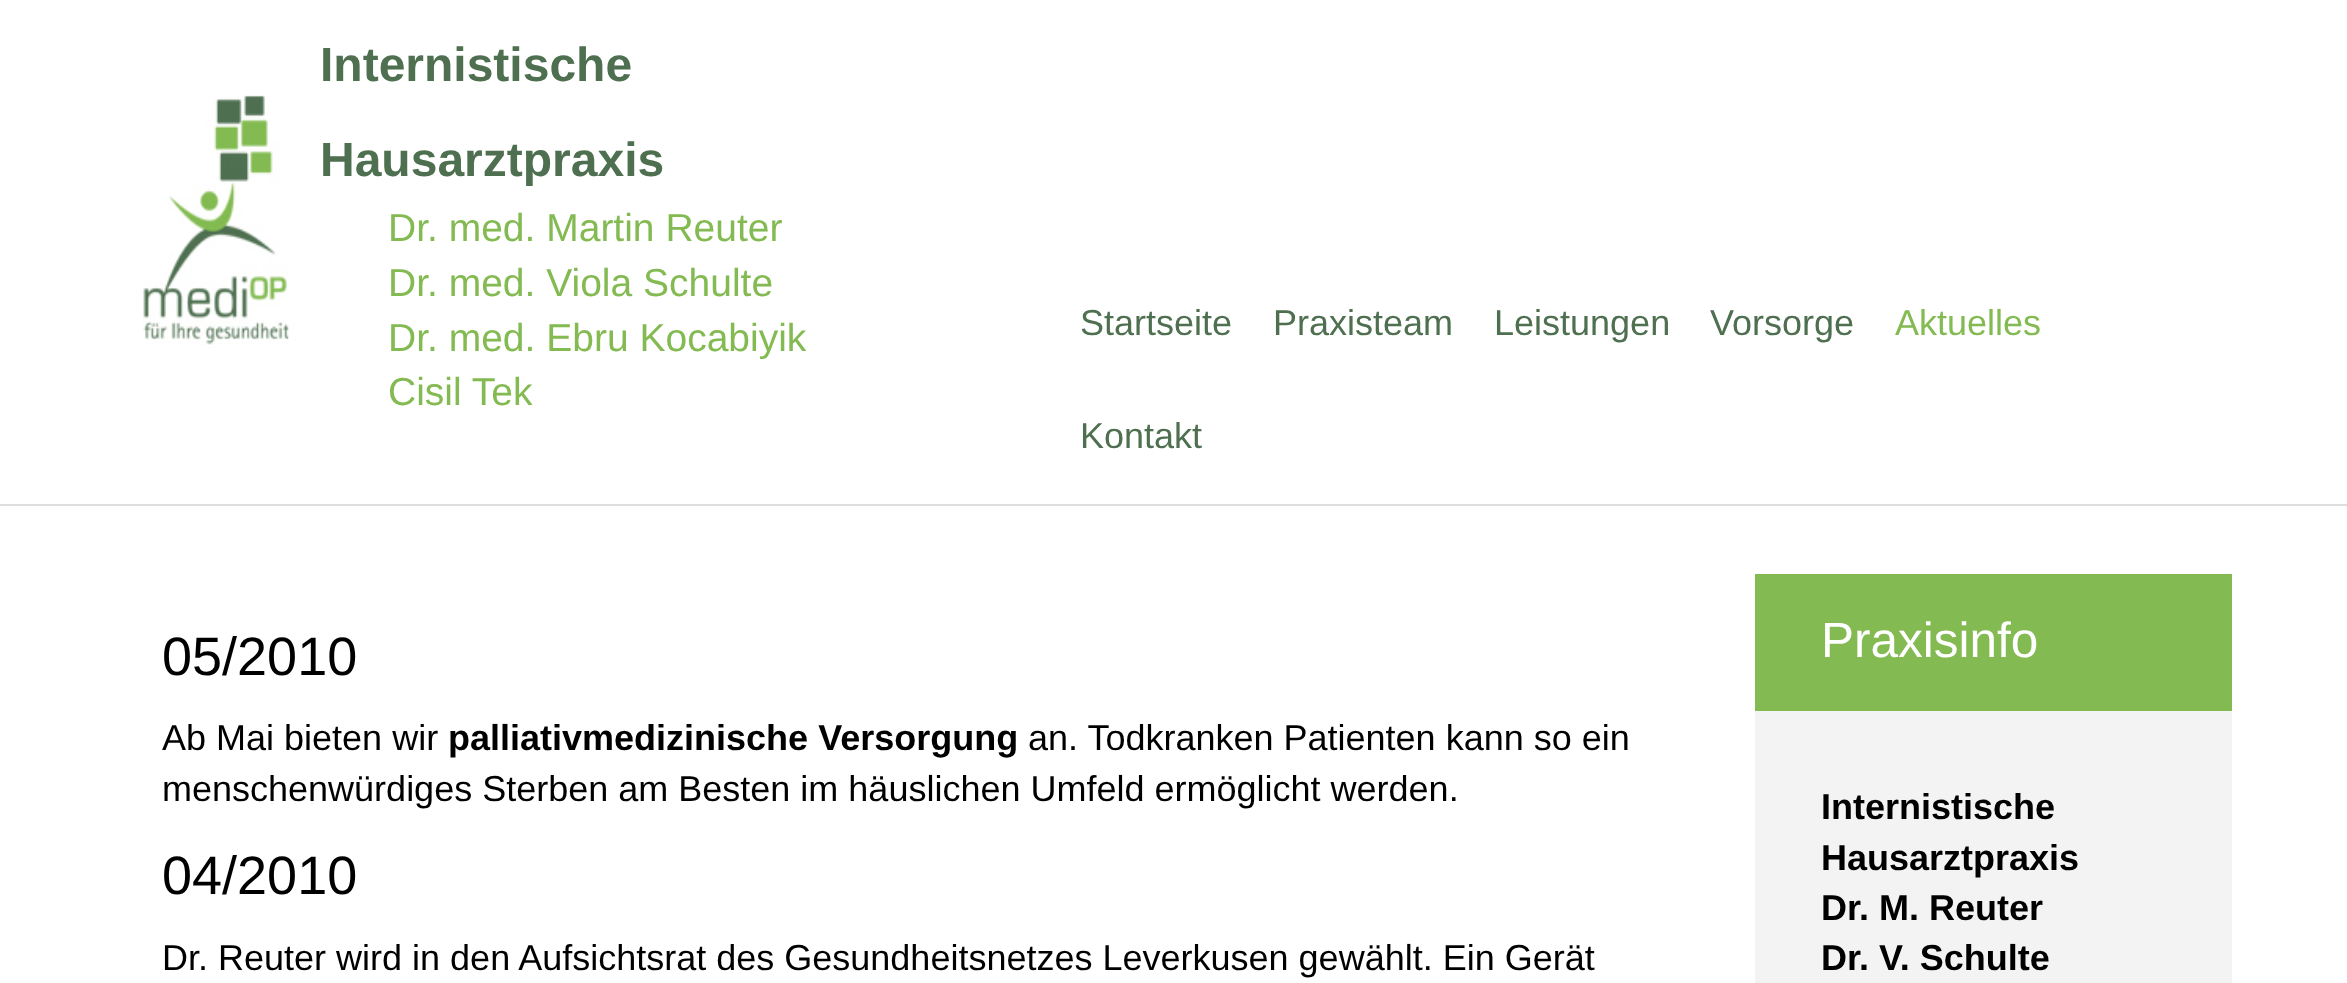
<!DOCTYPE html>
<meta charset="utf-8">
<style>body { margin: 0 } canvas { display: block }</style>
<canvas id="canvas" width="2347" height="983"></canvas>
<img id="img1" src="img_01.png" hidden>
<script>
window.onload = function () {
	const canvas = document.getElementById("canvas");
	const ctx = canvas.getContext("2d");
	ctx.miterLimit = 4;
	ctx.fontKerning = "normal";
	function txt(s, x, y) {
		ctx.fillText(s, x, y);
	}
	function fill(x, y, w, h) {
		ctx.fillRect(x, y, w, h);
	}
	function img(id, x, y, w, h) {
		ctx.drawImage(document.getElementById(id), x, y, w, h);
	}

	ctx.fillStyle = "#FFFFFF";
	fill(0, 0, 2347, 983);
	ctx.fillStyle = "#DDDDDD";
	fill(0, 504, 2347, 2);
	img("img1", 143, 95, 146, 250);
	ctx.fillStyle = "#F3F3F3";
	fill(1755, 711, 477, 272);
	ctx.fillStyle = "#84BA52";
	fill(1755, 574, 477, 137);
	ctx.font = "bold 48px Liberation Sans";
	ctx.fillStyle = "#4F7050";
	txt("Internistische", 320, 81);
	txt("Hausarztpraxis", 320, 176);
	ctx.font = "39px Liberation Sans";
	ctx.fillStyle = "#84BA52";
	txt("Dr. med. Martin Reuter", 388, 241);
	txt("Dr. med. Viola Schulte", 388, 296);
	txt("Dr. med. Ebru Kocabiyik", 388, 351);
	txt("Cisil Tek", 388, 405);
	ctx.font = "36px Liberation Sans";
	ctx.fillStyle = "#4F7050";
	txt("Startseite", 1080, 335);
	txt("Praxisteam", 1273, 335);
	txt("Leistungen", 1494, 335);
	txt("Vorsorge", 1710, 335);
	ctx.fillStyle = "#84BA52";
	txt("Aktuelles", 1895, 335);
	ctx.fillStyle = "#4F7050";
	txt("Kontakt", 1080, 448);
	ctx.font = "54px Liberation Sans";
	ctx.fillStyle = "#000000";
	txt("05/2010", 162, 675);
	ctx.font = "36px Liberation Sans";
	txt("Ab Mai bieten wir", 162, 750);
	ctx.font = "bold 36px Liberation Sans";
	txt("palliativmedizinische Versorgung", 448, 750);
	ctx.font = "36px Liberation Sans";
	txt("an. Todkranken Patienten kann so ein", 1028, 750);
	txt("menschenwürdiges Sterben am Besten im häuslichen Umfeld ermöglicht werden.", 162, 801);
	ctx.font = "54px Liberation Sans";
	txt("04/2010", 162, 894);
	ctx.font = "36px Liberation Sans";
	txt("Dr. Reuter wird in den Aufsichtsrat des Gesundheitsnetzes Leverkusen gewählt. Ein Gerät", 162, 970);
	ctx.font = "49.5px Liberation Sans";
	ctx.fillStyle = "#FFFFFF";
	txt("Praxisinfo", 1821, 657);
	ctx.font = "bold 36px Liberation Sans";
	ctx.fillStyle = "#000000";
	txt("Internistische", 1821, 819);
	txt("Hausarztpraxis", 1821, 870);
	txt("Dr. M. Reuter", 1821, 920);
	txt("Dr. V. Schulte", 1821, 970);
};
</script>
